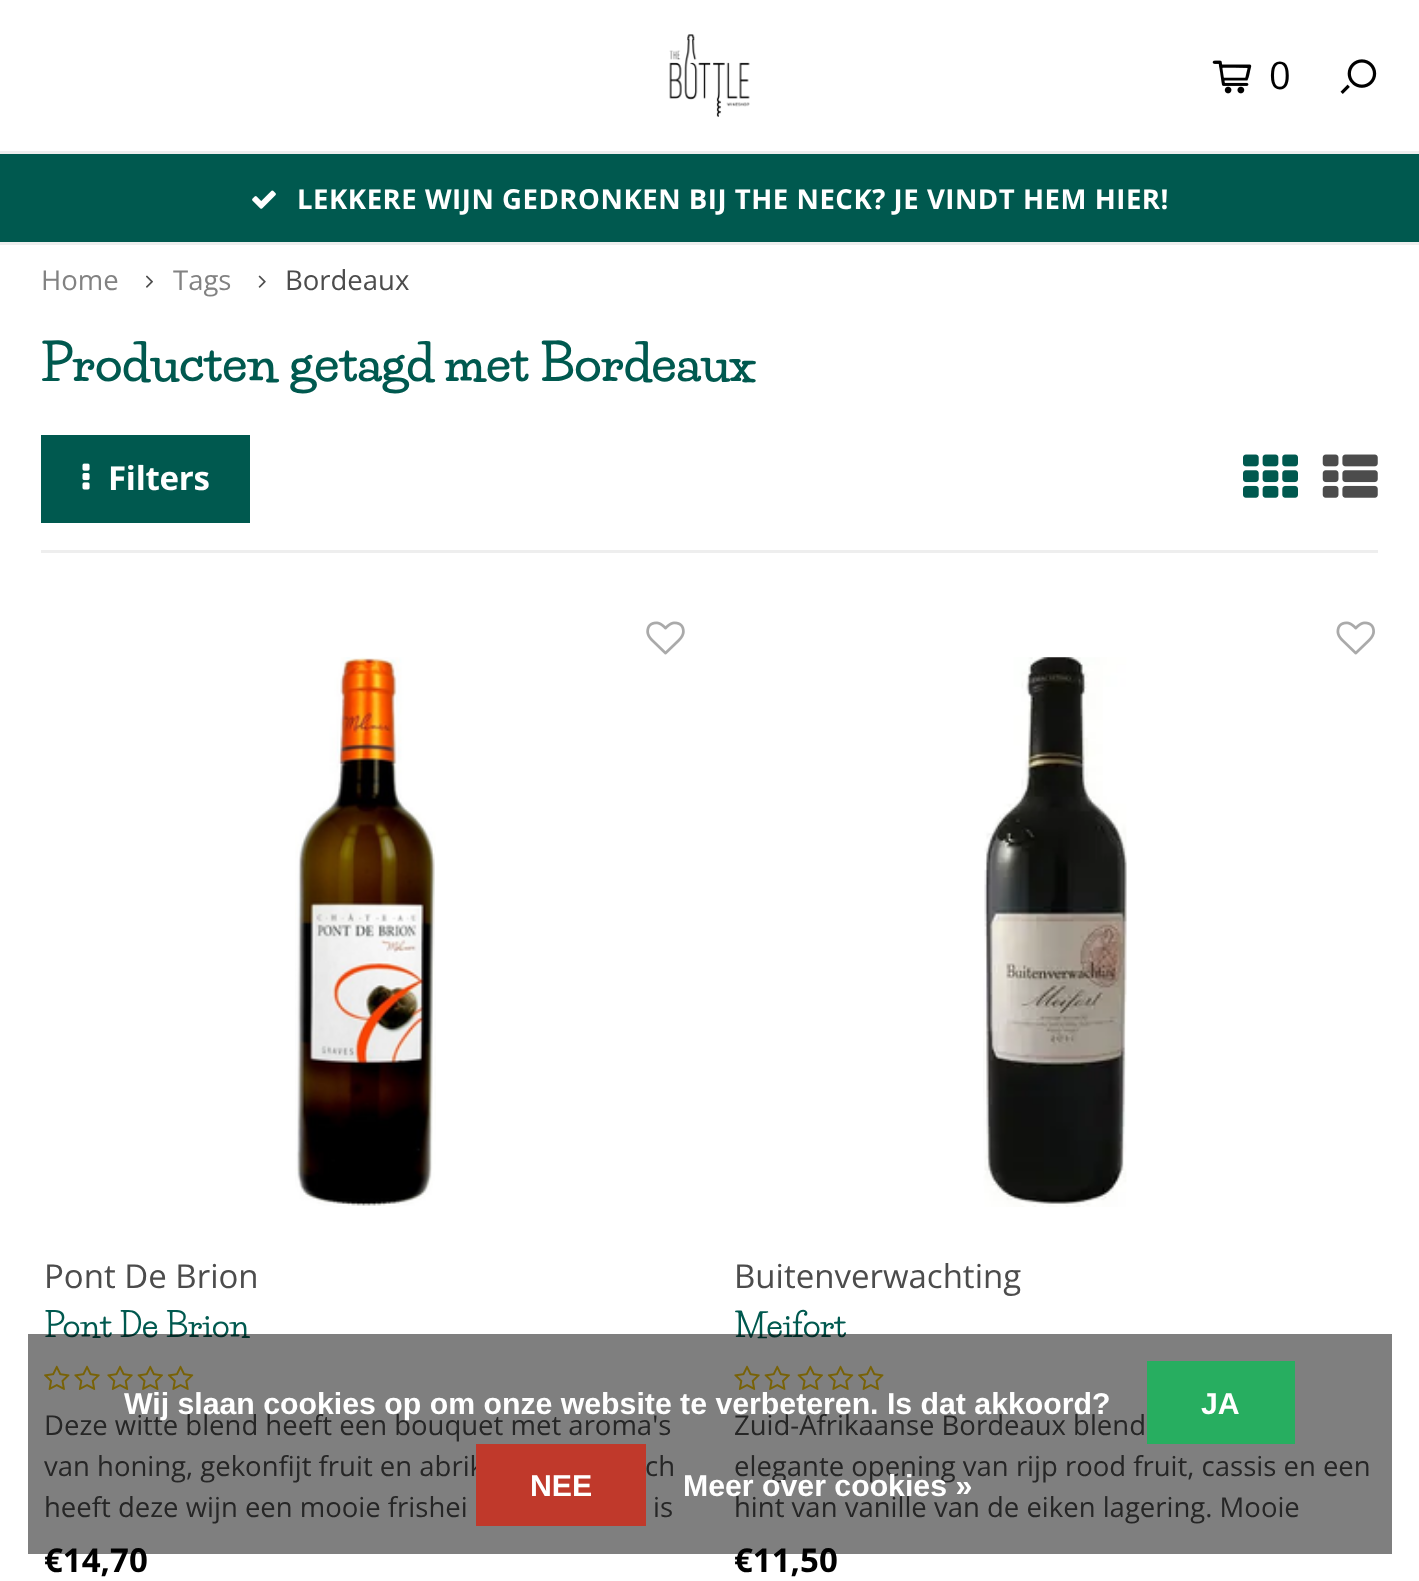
<!DOCTYPE html>
<meta charset="utf-8">
<style>body { margin: 0 } canvas { display: block }</style>
<canvas id="canvas" width="1419" height="1581"></canvas>
<img id="img1" src="img_01.png" hidden>
<img id="img2" src="img_02.png" hidden>
<img id="img3" src="img_03.png" hidden>
<img id="img4" src="img_04.png" hidden>
<img id="img5" src="img_05.png" hidden>
<img id="img6" src="img_06.png" hidden>
<img id="img7" src="img_07.png" hidden>
<img id="img8" src="img_08.png" hidden>
<img id="img9" src="img_09.png" hidden>
<img id="img10" src="img_10.png" hidden>
<img id="img11" src="img_11.png" hidden>
<img id="img12" src="img_12.png" hidden>
<img id="img13" src="img_13.png" hidden>
<img id="img14" src="img_14.png" hidden>
<img id="img15" src="img_15.png" hidden>
<img id="img16" src="img_16.png" hidden>
<img id="img17" src="img_17.png" hidden>
<script>
window.onload = function () {
	const canvas = document.getElementById("canvas");
	const ctx = canvas.getContext("2d");
	ctx.miterLimit = 4;
	ctx.fontKerning = "normal";
	function txt(s, x, y) {
		ctx.fillText(s, x, y);
	}
	function fill(x, y, w, h) {
		ctx.fillRect(x, y, w, h);
	}
	function img(id, x, y, w, h) {
		ctx.drawImage(document.getElementById(id), x, y, w, h);
	}

	ctx.fillStyle = "#FFFFFF";
	fill(0, 0, 1419, 1581);
	ctx.fillStyle = "#EEEEEE";
	fill(0, 151, 1419, 3);
	img("img1", 669, 34, 81, 83);
	img("img2", 1212, 60, 40, 34);
	img("img3", 1340, 59, 37, 35);
	ctx.fillStyle = "#00594F";
	fill(0, 154, 1419, 88);
	ctx.fillStyle = "#EEEEEE";
	fill(0, 242, 1419, 3);
	img("img4", 252, 190, 24, 19);
	img("img5", 146, 275, 7, 13);
	img("img6", 258, 275, 8, 13);
	fill(41, 550, 1337, 3);
	ctx.fillStyle = "#00594F";
	fill(41, 435, 209, 88);
	img("img7", 82, 463, 8, 27);
	img("img8", 1243, 454, 55, 44);
	img("img9", 1322, 454, 56, 44);
	img("img10", 646, 621, 39, 34);
	img("img11", 295, 657, 141, 550);
	img("img12", 44, 1365, 26, 25);
	img("img13", 74, 1365, 26, 25);
	img("img13", 107, 1365, 26, 25);
	img("img14", 137, 1365, 26, 25);
	img("img15", 167, 1365, 27, 25);
	img("img16", 1336, 621, 39, 34);
	img("img17", 983, 657, 144, 550);
	img("img13", 734, 1365, 26, 25);
	img("img14", 764, 1365, 26, 25);
	img("img14", 797, 1365, 26, 25);
	img("img15", 827, 1365, 27, 25);
	img("img12", 858, 1365, 26, 25);
	ctx.font = "38px Open Sans";
	ctx.fillStyle = "#000000";
	txt("0", 1269, 89);
	ctx.letterSpacing = "0.55px";
	ctx.font = "bold 27.5px Open Sans";
	ctx.fillStyle = "#FFFFFF";
	txt("LEKKERE WIJN GEDRONKEN BIJ THE NECK? JE VINDT HEM HIER!", 297, 209);
	ctx.letterSpacing = "0px";
	ctx.font = "27.5px Open Sans";
	ctx.fillStyle = "#828282";
	txt("Home", 41, 290);
	txt("Tags", 173, 290);
	ctx.fillStyle = "#4C4C4C";
	txt("Bordeaux", 285, 290);
	ctx.font = "800 49.5px Life Savers";
	ctx.fillStyle = "#00594F";
	txt("Producten getagd met Bordeaux", 41, 381);
	ctx.letterSpacing = "-0.25px";
	ctx.font = "bold 33px Open Sans";
	ctx.fillStyle = "#FFFFFF";
	txt("Filters", 108, 490);
	ctx.letterSpacing = "0px";
	ctx.font = "33px Open Sans";
	ctx.fillStyle = "#4C4C4C";
	txt("Pont De Brion", 44, 1288);
	ctx.font = "bold 33px Life Savers";
	ctx.fillStyle = "#00594F";
	txt("Pont De Brion", 44, 1337);
	ctx.font = "27.5px Open Sans";
	ctx.fillStyle = "#4C4C4C";
	txt("Deze witte blend heeft een bouquet met aroma's", 44, 1435);
	txt("van honing, gekonfijt fruit en abrik", 44, 1476);
	txt("ch", 645, 1476);
	txt("heeft deze wijn een mooie frishei", 44, 1517);
	txt("is", 653, 1517);
	ctx.font = "bold 33px Open Sans";
	ctx.fillStyle = "#000000";
	txt("€14,70", 44, 1572);
	ctx.font = "33px Open Sans";
	ctx.fillStyle = "#4C4C4C";
	txt("Buitenverwachting", 734, 1288);
	ctx.font = "bold 33px Life Savers";
	ctx.fillStyle = "#00594F";
	txt("Meifort", 734, 1337);
	ctx.font = "27.5px Open Sans";
	ctx.fillStyle = "#4C4C4C";
	txt("Zuid-Afrikaanse Bordeaux blend", 734, 1435);
	txt("elegante opening van rijp rood fruit, cassis en een", 734, 1476);
	txt("hint van vanille van de eiken lagering. Mooie", 734, 1517);
	ctx.font = "bold 33px Open Sans";
	ctx.fillStyle = "#000000";
	txt("€11,50", 734, 1572);
	ctx.fillStyle = "rgba(0, 0, 0, 0.5)";
	fill(28, 1334, 1364, 220);
	ctx.font = "bold 30.25px Liberation Sans";
	ctx.fillStyle = "#FFFFFF";
	txt("Wij slaan cookies op om onze website te verbeteren. Is dat akkoord?", 124, 1414);
	ctx.fillStyle = "#27AE60";
	fill(1147, 1361, 148, 83);
	ctx.fillStyle = "#FFFFFF";
	txt("JA", 1201, 1414);
	ctx.fillStyle = "#C0392B";
	fill(476, 1444, 170, 82);
	ctx.fillStyle = "#FFFFFF";
	txt("NEE", 530, 1496);
	txt("Meer over cookies »", 683, 1496);
};
</script>
